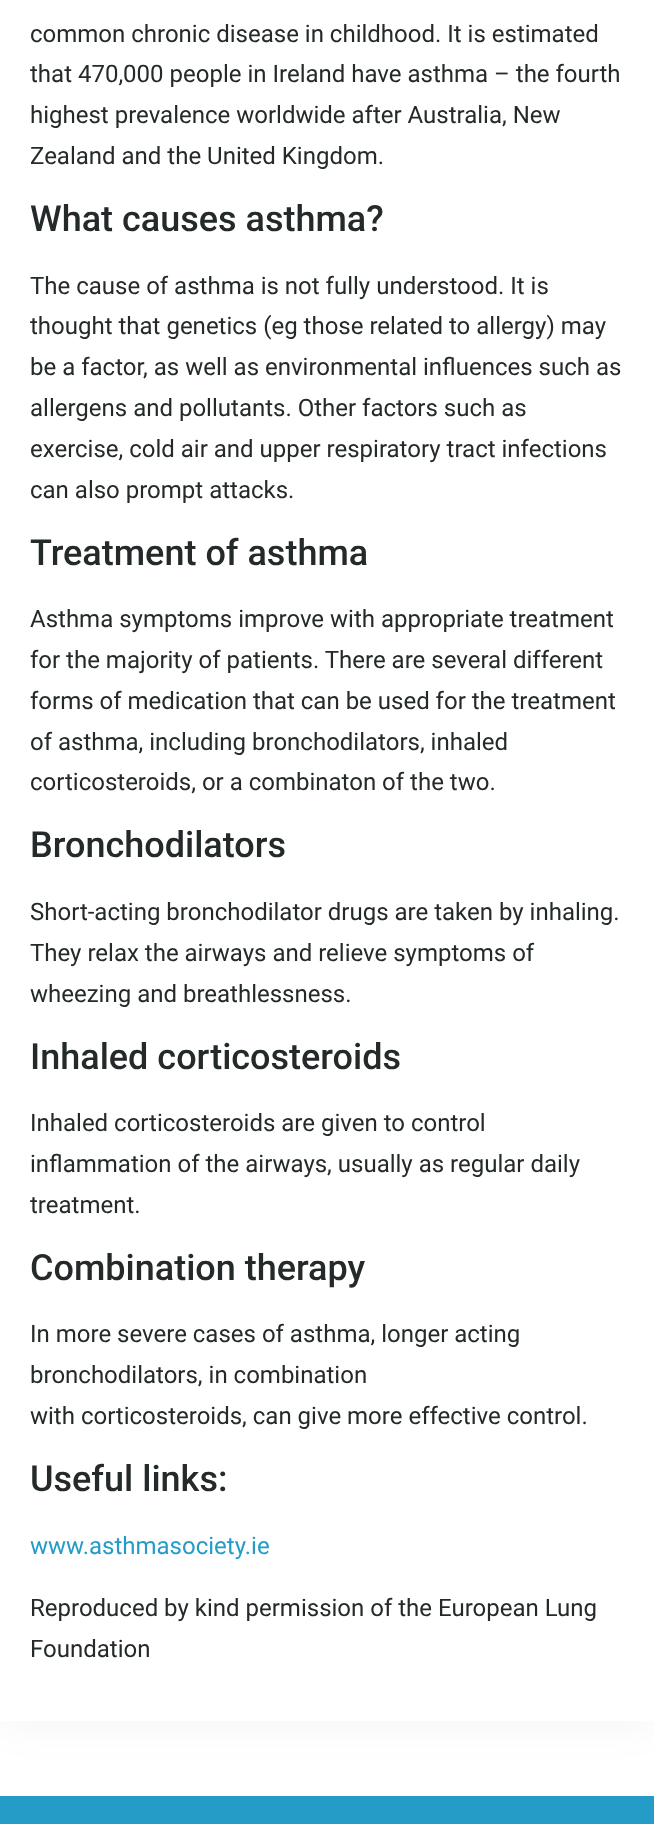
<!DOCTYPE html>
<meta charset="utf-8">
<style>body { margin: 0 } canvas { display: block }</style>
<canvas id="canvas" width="654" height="1824"></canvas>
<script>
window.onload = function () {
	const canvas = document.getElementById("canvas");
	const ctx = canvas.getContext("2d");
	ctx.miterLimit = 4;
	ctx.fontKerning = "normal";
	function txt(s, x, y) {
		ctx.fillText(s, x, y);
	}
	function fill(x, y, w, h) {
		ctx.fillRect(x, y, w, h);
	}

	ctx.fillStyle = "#FFFFFF";
	fill(0, 0, 654, 1824);
	ctx.fillStyle = "rgba(0, 0, 0, 0.05)";
	ctx.filter = "blur(22.5px)";
	ctx.beginPath();
	ctx.rect(0, -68, 654, 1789);
	ctx.fill();
	ctx.filter = "none";
	ctx.fillStyle = "#FFFFFF";
	fill(0, 0, 654, 1721);
	ctx.fillStyle = "#249CC7";
	fill(0, 1796, 654, 28);
	ctx.font = "24px Roboto";
	ctx.fillStyle = "#24292A";
	txt("common chronic disease in childhood. It is estimated", 30, 42);
	txt("that 470,000 people in Ireland have asthma – the fourth", 30, 82);
	txt("highest prevalence worldwide after Australia, New", 30, 123);
	txt("Zealand and the United Kingdom.", 30, 164);
	ctx.font = "500 36px Roboto";
	txt("What causes asthma?", 30, 231);
	ctx.font = "24px Roboto";
	txt("The cause of asthma is not fully understood. It is", 30, 294);
	txt("thought that genetics (eg those related to allergy) may", 30, 334);
	txt("be a factor, as well as environmental influences such as", 30, 375);
	txt("allergens and pollutants. Other factors such as", 30, 416);
	txt("exercise, cold air and upper respiratory tract infections", 30, 457);
	txt("can also prompt attacks.", 30, 498);
	ctx.font = "500 36px Roboto";
	txt("Treatment of asthma", 30, 565);
	ctx.font = "24px Roboto";
	txt("Asthma symptoms improve with appropriate treatment", 30, 627);
	txt("for the majority of patients. There are several different", 30, 668);
	txt("forms of medication that can be used for the treatment", 30, 709);
	txt("of asthma, including bronchodilators, inhaled", 30, 750);
	txt("corticosteroids, or a combinaton of the two.", 30, 790);
	ctx.font = "500 36px Roboto";
	txt("Bronchodilators", 30, 857);
	ctx.font = "24px Roboto";
	txt("Short-acting bronchodilator drugs are taken by inhaling.", 30, 920);
	txt("They relax the airways and relieve symptoms of", 30, 961);
	txt("wheezing and breathlessness.", 30, 1002);
	ctx.font = "500 36px Roboto";
	txt("Inhaled corticosteroids", 30, 1069);
	ctx.font = "24px Roboto";
	txt("Inhaled corticosteroids are given to control", 30, 1131);
	txt("inflammation of the airways, usually as regular daily", 30, 1172);
	txt("treatment.", 30, 1213);
	ctx.font = "500 36px Roboto";
	txt("Combination therapy", 30, 1280);
	ctx.font = "24px Roboto";
	txt("In more severe cases of asthma, longer acting", 30, 1342);
	txt("bronchodilators, in combination", 30, 1383);
	txt("with corticosteroids, can give more effective control.", 30, 1424);
	ctx.font = "500 36px Roboto";
	txt("Useful links:", 30, 1491);
	ctx.font = "24px Roboto";
	ctx.fillStyle = "#249CC7";
	txt("www.asthmasociety.ie", 30, 1554);
	ctx.fillStyle = "#24292A";
	txt("Reproduced by kind permission of the European Lung", 30, 1616);
	txt("Foundation", 30, 1657);
};
</script>
